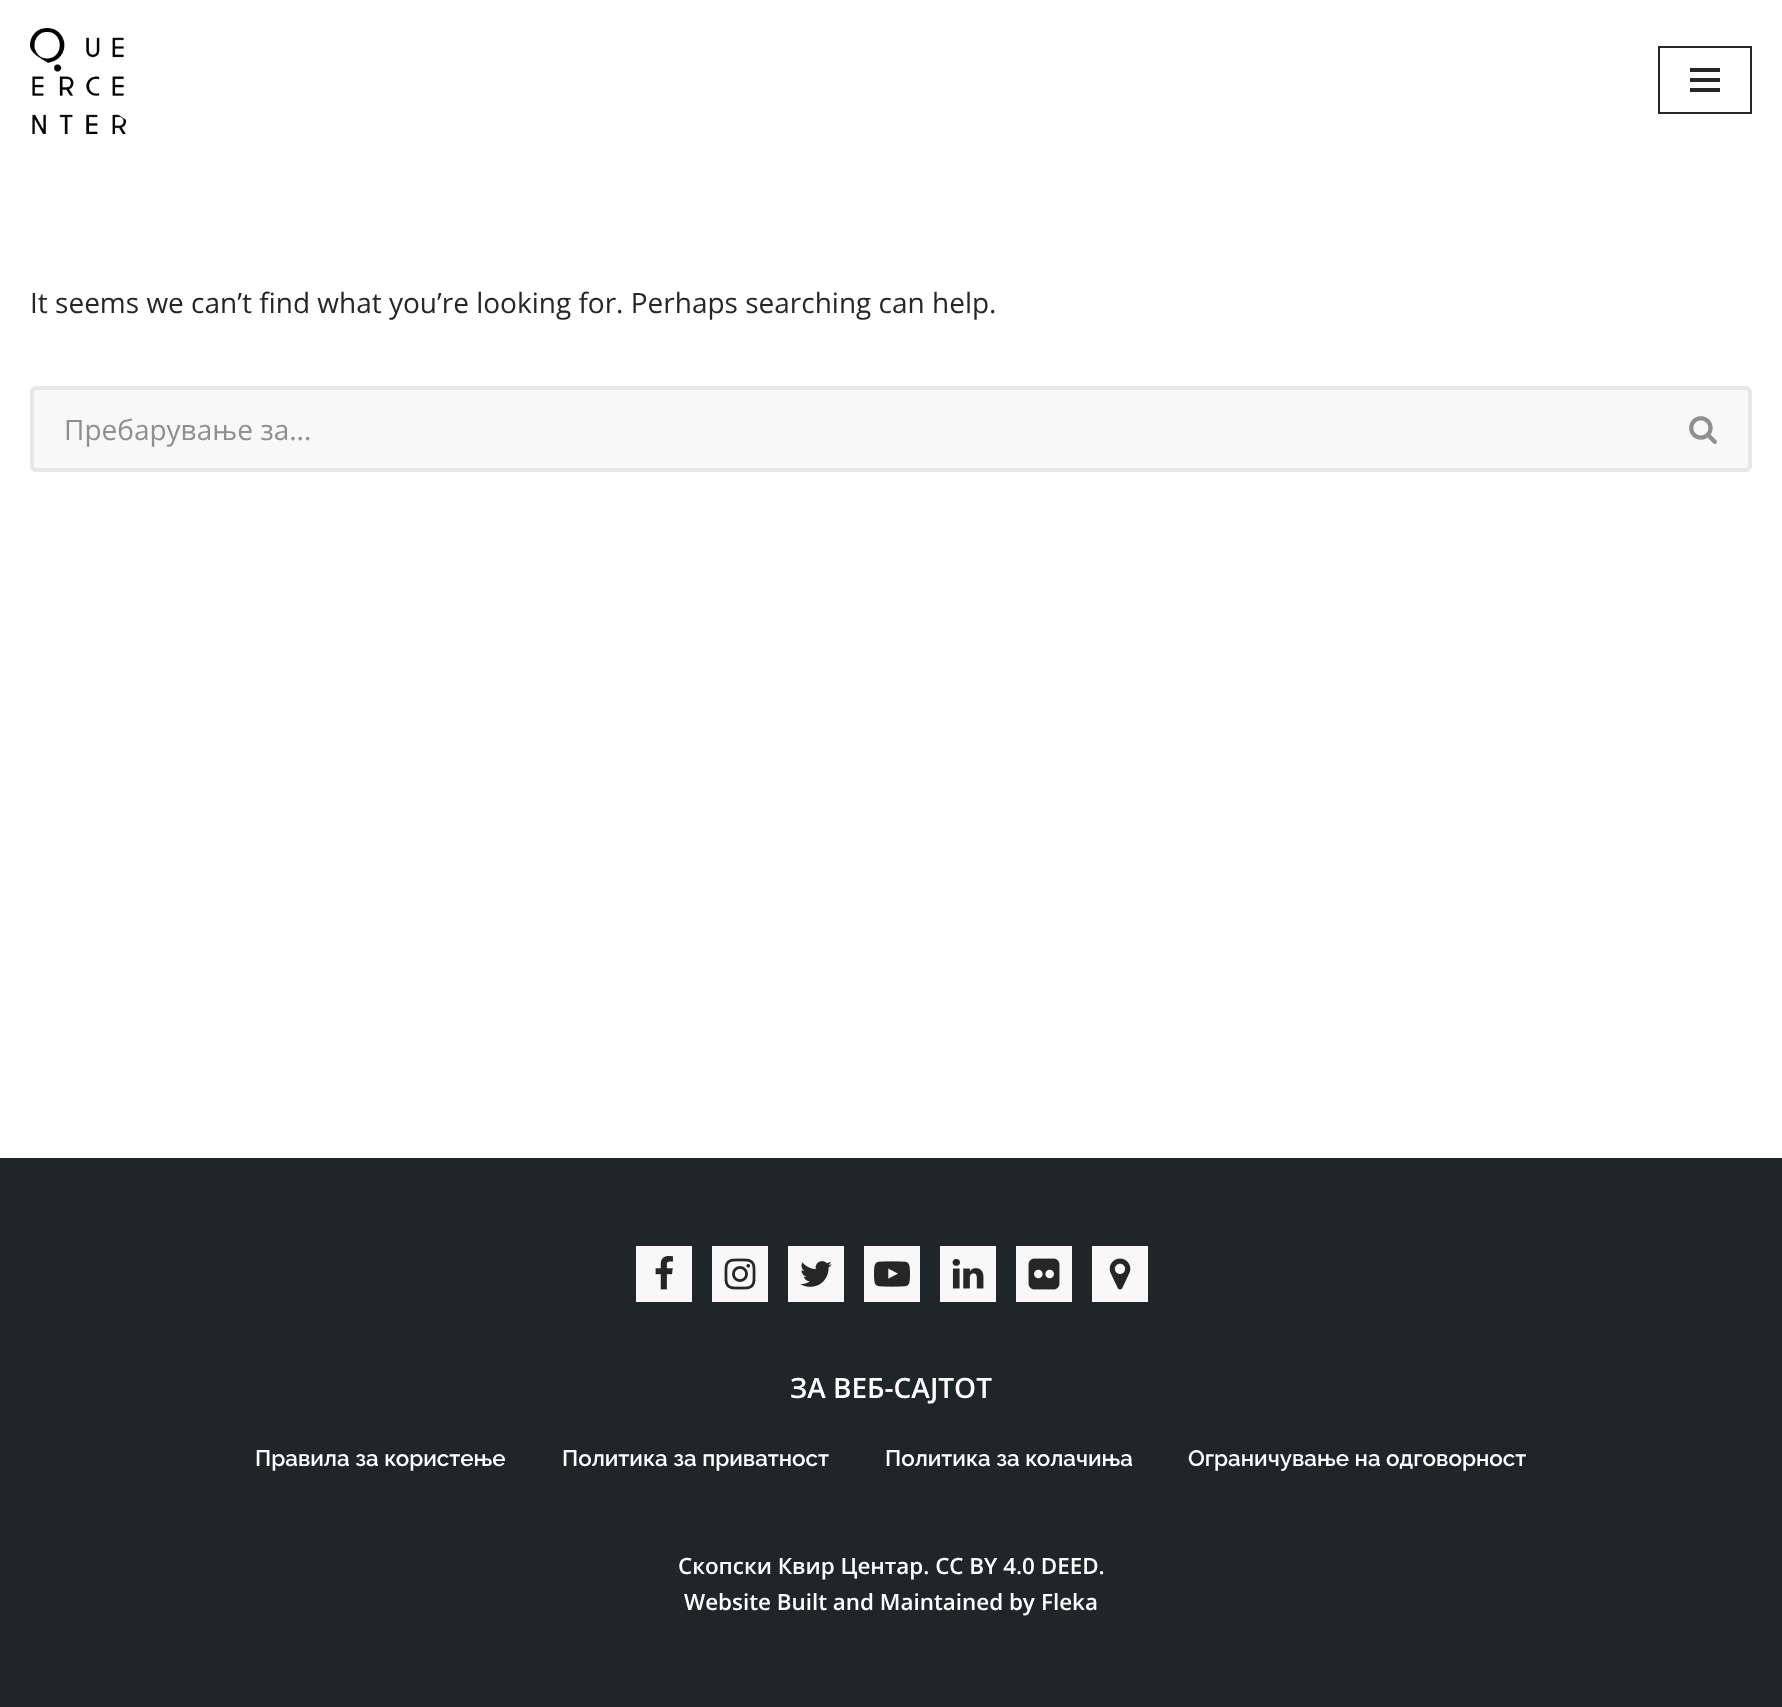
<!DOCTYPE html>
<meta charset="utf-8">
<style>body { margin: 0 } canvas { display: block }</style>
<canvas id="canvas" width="1782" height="1707"></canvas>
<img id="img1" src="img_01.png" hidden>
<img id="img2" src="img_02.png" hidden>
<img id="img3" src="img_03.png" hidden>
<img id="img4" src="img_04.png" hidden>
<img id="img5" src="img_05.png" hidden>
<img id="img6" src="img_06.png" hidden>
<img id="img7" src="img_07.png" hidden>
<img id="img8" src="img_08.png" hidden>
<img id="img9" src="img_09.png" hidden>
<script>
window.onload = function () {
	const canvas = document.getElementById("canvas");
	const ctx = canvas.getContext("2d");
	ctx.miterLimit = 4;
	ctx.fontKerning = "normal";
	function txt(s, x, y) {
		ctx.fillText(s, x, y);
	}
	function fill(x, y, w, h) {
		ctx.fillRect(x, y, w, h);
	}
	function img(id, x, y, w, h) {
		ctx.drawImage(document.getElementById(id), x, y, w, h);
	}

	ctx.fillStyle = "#FFFFFF";
	fill(0, 0, 1782, 1707);
	img("img1", 30, 28, 96, 106);
	ctx.strokeStyle = "#272626";
	ctx.lineWidth = 2;
	ctx.strokeRect(1659, 47, 92, 66);
	ctx.fillStyle = "#272626";
	fill(1690, 68, 30, 4);
	fill(1690, 78, 30, 4);
	fill(1690, 88, 30, 4);
	ctx.fillStyle = "#F8F8F8";
	ctx.beginPath();
	ctx.roundRect(30, 386, 1628, 86, [6, 0, 0, 6]);
	ctx.fill();
	ctx.fillStyle = "#E7E7E7";
	ctx.beginPath();
	ctx.moveTo(36, 386);
	ctx.lineTo(1658, 386);
	ctx.lineTo(1658, 472);
	ctx.lineTo(36, 472);
	ctx.bezierCurveTo(33, 472, 30, 469, 30, 466);
	ctx.lineTo(30, 392);
	ctx.bezierCurveTo(30, 389, 33, 386, 36, 386);
	ctx.closePath();
	ctx.moveTo(36, 390);
	ctx.lineTo(1658, 390);
	ctx.lineTo(1658, 468);
	ctx.lineTo(36, 468);
	ctx.bezierCurveTo(35, 468, 34, 467, 34, 466);
	ctx.lineTo(34, 392);
	ctx.bezierCurveTo(34, 391, 35, 390, 36, 390);
	ctx.closePath();
	ctx.fill("evenodd");
	ctx.fillStyle = "#F8F8F8";
	ctx.beginPath();
	ctx.roundRect(1658, 386, 94, 86, [0, 6, 6, 0]);
	ctx.fill();
	ctx.fillStyle = "#E7E7E7";
	ctx.beginPath();
	ctx.moveTo(1658, 386);
	ctx.lineTo(1746, 386);
	ctx.bezierCurveTo(1749, 386, 1752, 389, 1752, 392);
	ctx.lineTo(1752, 466);
	ctx.bezierCurveTo(1752, 469, 1749, 472, 1746, 472);
	ctx.lineTo(1658, 472);
	ctx.closePath();
	ctx.moveTo(1658, 390);
	ctx.lineTo(1746, 390);
	ctx.bezierCurveTo(1747, 390, 1748, 391, 1748, 392);
	ctx.lineTo(1748, 466);
	ctx.bezierCurveTo(1748, 467, 1747, 468, 1746, 468);
	ctx.lineTo(1658, 468);
	ctx.closePath();
	ctx.fill("evenodd");
	img("img2", 1689, 416, 28, 28);
	ctx.fillStyle = "#202527";
	fill(0, 1158, 1782, 549);
	ctx.fillStyle = "#F8F8F8";
	fill(636, 1246, 56, 56);
	img("img3", 655, 1256, 18, 34);
	fill(712, 1246, 56, 56);
	img("img4", 724, 1258, 32, 32);
	fill(788, 1246, 56, 56);
	img("img5", 800, 1261, 32, 26);
	fill(864, 1246, 56, 56);
	img("img6", 874, 1261, 36, 26);
	fill(940, 1246, 56, 56);
	img("img7", 952, 1259, 32, 30);
	fill(1016, 1246, 56, 56);
	img("img8", 1028, 1258, 32, 32);
	fill(1092, 1246, 56, 56);
	img("img9", 1109, 1258, 22, 32);
	ctx.font = "28px Open Sans";
	ctx.fillStyle = "#272626";
	txt("It seems we can’t find what you’re looking for. Perhaps searching can help.", 30, 313);
	ctx.fillStyle = "#908F8F";
	txt("Пребарување за...", 64, 440);
	ctx.font = "600 28px Open Sans";
	ctx.fillStyle = "#FFFFFF";
	txt("ЗА ВЕБ-САЈТОТ", 790, 1398);
	ctx.font = "100 22.4px Raleway";
	txt("Правила за користење", 255, 1466);
	txt("Политика за приватност", 562, 1466);
	txt("Политика за колачиња", 885, 1466);
	txt("Ограничување на одговорност", 1188, 1466);
	ctx.font = "600 22.4px Open Sans";
	txt("Скопски Квир Центар. CC BY 4.0 DEED.", 678, 1574);
	txt("Website Built and Maintained by", 684, 1610);
	txt("Fleka", 1041, 1610);
};
</script>
